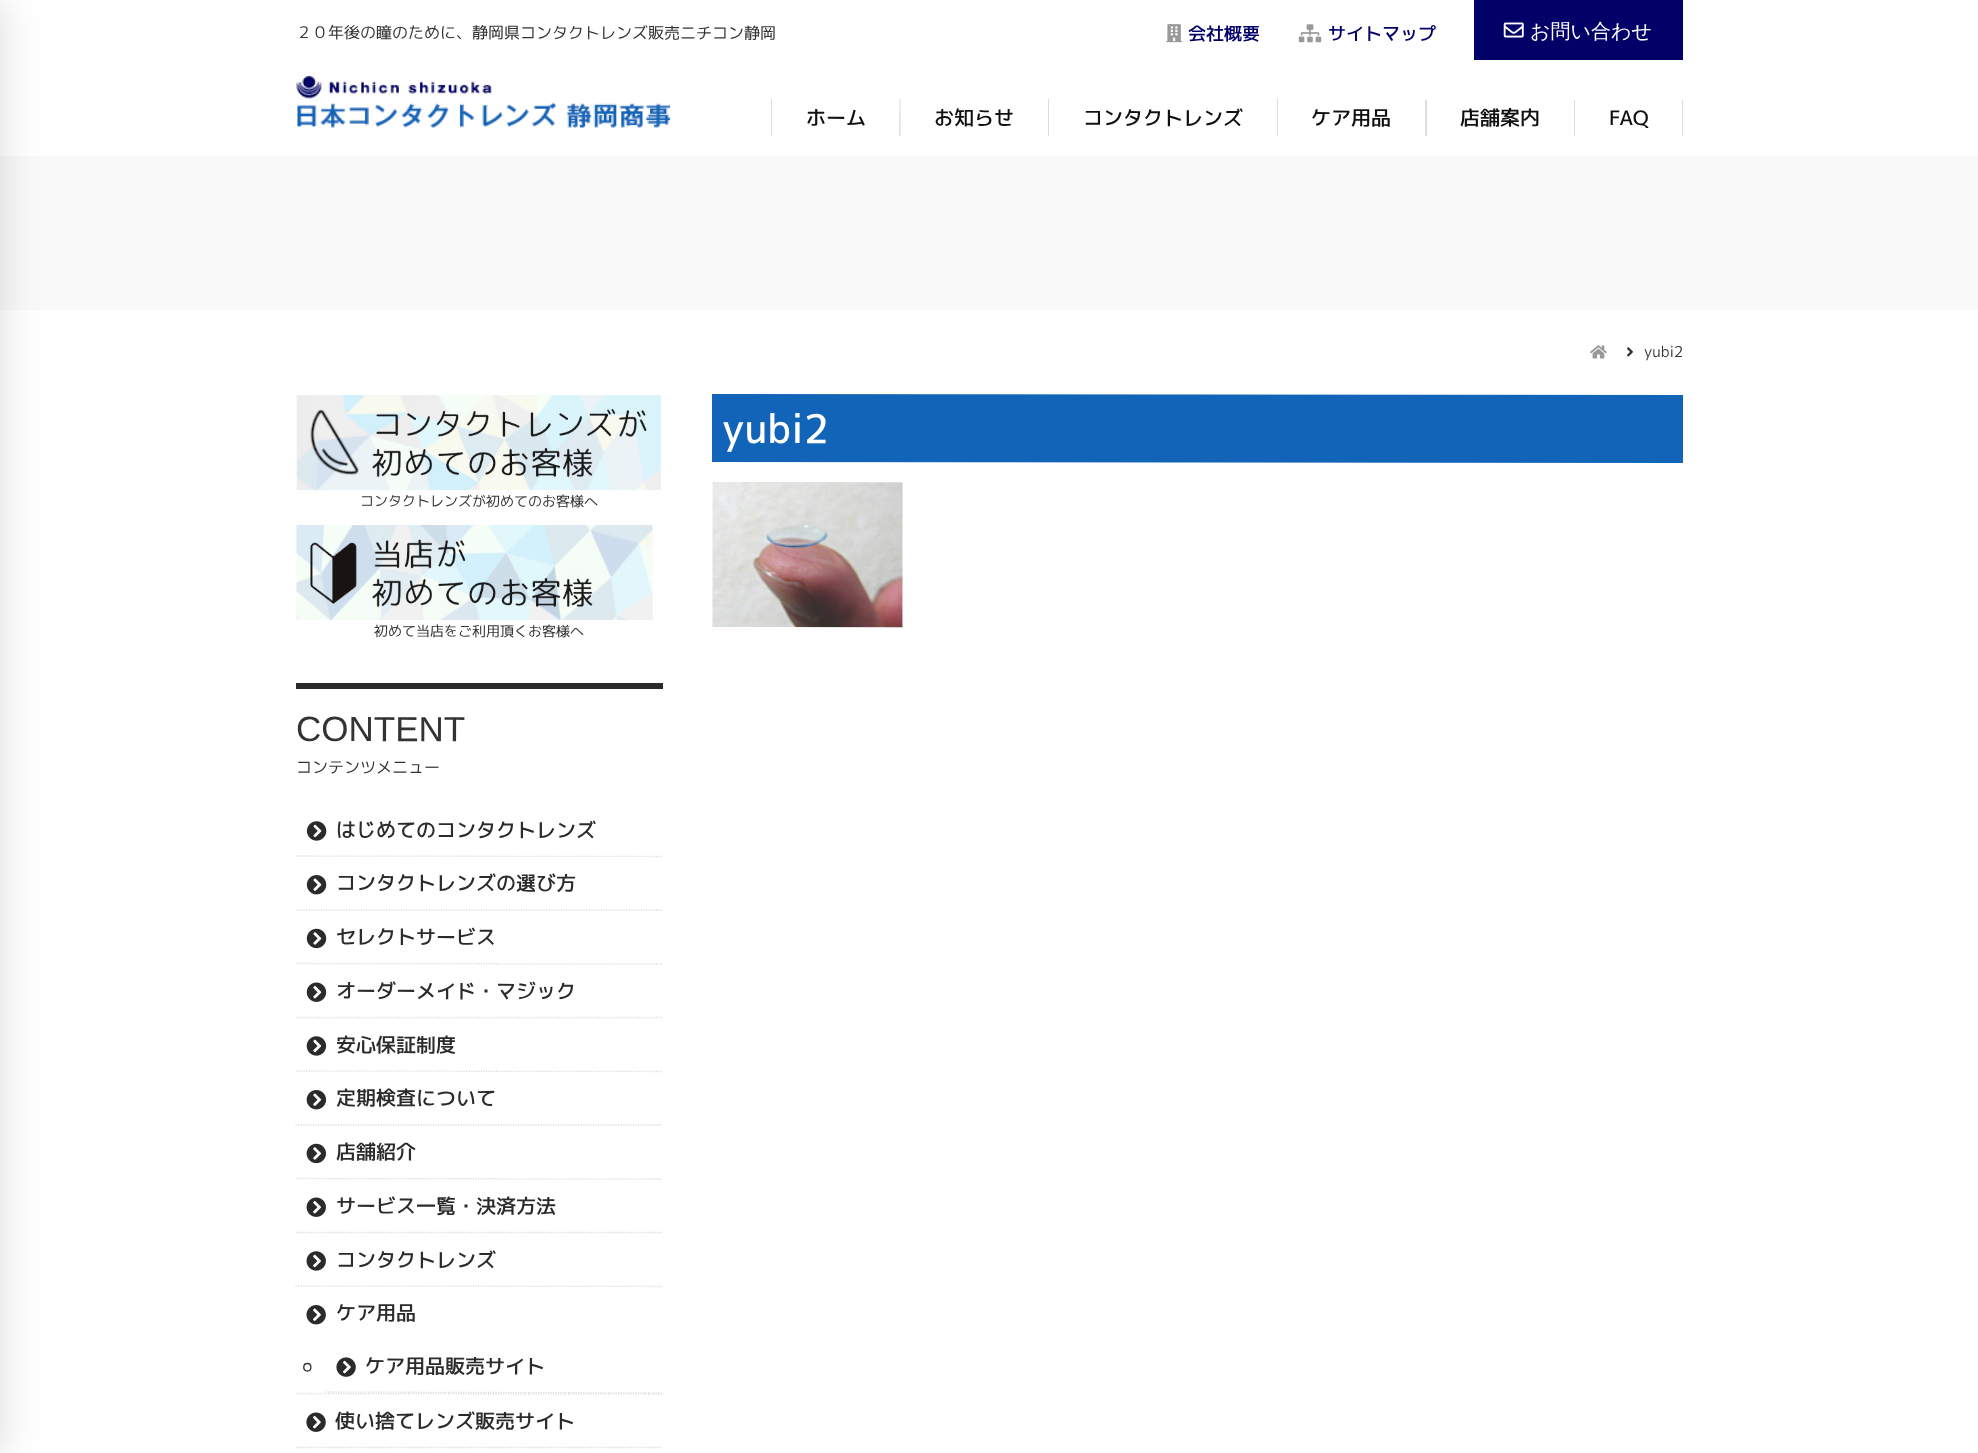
<!DOCTYPE html>
<meta charset="utf-8">
<style>body { margin: 0 } canvas { display: block }</style>
<canvas id="canvas" width="1978" height="1453"></canvas>
<img id="img1" src="img_01.png" hidden>
<img id="img2" src="img_02.png" hidden>
<img id="img3" src="img_03.png" hidden>
<img id="img4" src="img_04.png" hidden>
<img id="img5" src="img_05.png" hidden>
<img id="img6" src="img_06.png" hidden>
<img id="img7" src="img_07.png" hidden>
<img id="img8" src="img_08.png" hidden>
<img id="img9" src="img_09.png" hidden>
<img id="img10" src="img_10.png" hidden>
<img id="img11" src="img_11.png" hidden>
<img id="img12" src="img_12.png" hidden>
<img id="img13" src="img_13.png" hidden>
<img id="img14" src="img_14.png" hidden>
<img id="img15" src="img_15.png" hidden>
<img id="img16" src="img_16.png" hidden>
<img id="img17" src="img_17.png" hidden>
<img id="img18" src="img_18.png" hidden>
<img id="img19" src="img_19.png" hidden>
<img id="img20" src="img_20.png" hidden>
<img id="img21" src="img_21.png" hidden>
<script>
window.onload = function () {
	const canvas = document.getElementById("canvas");
	const ctx = canvas.getContext("2d");
	ctx.miterLimit = 4;
	ctx.fontKerning = "normal";
	function txt(s, x, y) {
		ctx.fillText(s, x, y);
	}
	function fill(x, y, w, h) {
		ctx.fillRect(x, y, w, h);
	}
	function img(id, x, y, w, h) {
		ctx.drawImage(document.getElementById(id), x, y, w, h);
	}

	ctx.fillStyle = "#FFFFFF";
	fill(0, 0, 1978, 1453);
	ctx.fillStyle = "#F9F9F9";
	fill(0, 156, 1978, 154);
	ctx.fillStyle = "rgba(0, 0, 0, 0.12)";
	ctx.filter = "blur(18px)";
	ctx.beginPath();
	ctx.rect(-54, 1, 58, 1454);
	ctx.fill();
	ctx.filter = "none";
	img("img1", 1166, 24, 16, 19);
	img("img2", 1298, 24, 24, 19);
	ctx.fillStyle = "#020167";
	fill(1474, 0, 209, 60);
	img("img3", 1503, 22, 21, 16);
	img("img4", 296, 72, 375, 56);
	ctx.fillStyle = "#DDDDDD";
	fill(771, 99, 1, 37);
	ctx.beginPath();
	ctx.moveTo(899.5, 99);
	ctx.lineTo(900.5, 99);
	ctx.lineTo(900.5, 135.5);
	ctx.lineTo(899, 135.5);
	ctx.closePath();
	ctx.fill();
	fill(1048, 99, 1, 37);
	fill(1277, 99, 1, 37);
	fill(1425, 100, 2, 36);
	fill(1682, 100, 1, 36);
	fill(1574, 100, 1, 36);
	img("img5", 1590, 345, 17, 14);
	img("img6", 1627, 347, 6, 10);
	ctx.fillStyle = "#1164B7";
	ctx.beginPath();
	ctx.moveTo(712, 394);
	ctx.lineTo(1683, 395);
	ctx.lineTo(1683, 463);
	ctx.lineTo(712, 462);
	ctx.closePath();
	ctx.fill();
	img("img7", 712, 482, 191, 146);
	img("img8", 296, 395, 366, 95);
	img("img9", 296, 525, 357, 95);
	ctx.fillStyle = "#2B2B2B";
	fill(296, 683, 367, 6);
	ctx.beginPath();
	ctx.moveTo(296, 856);
	ctx.lineTo(662, 856.5);
	ctx.strokeStyle = "#DDDDDD";
	ctx.lineWidth = 1.3;
	ctx.setLineDash([1.25, 1.25]);
	ctx.stroke();
	img("img10", 306, 821, 21, 20);
	ctx.beginPath();
	ctx.moveTo(296, 910);
	ctx.lineTo(662, 910);
	ctx.stroke();
	img("img11", 306, 875, 21, 20);
	ctx.beginPath();
	ctx.moveTo(296, 963.5);
	ctx.lineTo(662, 964);
	ctx.stroke();
	img("img12", 306, 928, 21, 21);
	ctx.beginPath();
	ctx.moveTo(296, 1017.5);
	ctx.lineTo(662, 1017.5);
	ctx.stroke();
	img("img13", 306, 982, 21, 20);
	ctx.beginPath();
	ctx.moveTo(296, 1071);
	ctx.lineTo(662, 1071.5);
	ctx.stroke();
	img("img14", 306, 1036, 21, 20);
	ctx.beginPath();
	ctx.moveTo(295.5, 1125);
	ctx.lineTo(662, 1125);
	ctx.stroke();
	img("img15", 306, 1090, 21, 20);
	ctx.save();
	ctx.beginPath();
	ctx.rect(296, 395, 417, 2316);
	ctx.clip();
	ctx.beginPath();
	ctx.moveTo(295.5, 1178.5);
	ctx.lineTo(662, 1179);
	ctx.stroke();
	ctx.restore();
	img("img16", 306, 1143, 20, 21);
	ctx.save();
	ctx.beginPath();
	ctx.rect(296, 395, 417, 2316);
	ctx.clip();
	ctx.beginPath();
	ctx.moveTo(295.5, 1232.5);
	ctx.lineTo(662, 1232.5);
	ctx.stroke();
	ctx.restore();
	img("img17", 306, 1197, 20, 20);
	ctx.beginPath();
	ctx.moveTo(295.5, 1286);
	ctx.lineTo(662, 1286.5);
	ctx.stroke();
	img("img18", 306, 1251, 20, 20);
	ctx.save();
	ctx.beginPath();
	ctx.rect(296, 395, 417, 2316);
	ctx.clip();
	ctx.beginPath();
	ctx.moveTo(295.5, 1393.5);
	ctx.lineTo(661.5, 1394);
	ctx.stroke();
	ctx.restore();
	img("img19", 306, 1305, 20, 20);
	ctx.beginPath();
	ctx.moveTo(325.5, 1392);
	ctx.lineTo(661.5, 1393);
	ctx.stroke();
	ctx.beginPath();
	ctx.moveTo(307.5, 1363.5);
	ctx.bezierCurveTo(312, 1363.5, 312, 1371, 307.5, 1371);
	ctx.bezierCurveTo(302.5, 1371, 302.5, 1363.5, 307.5, 1363.5);
	ctx.closePath();
	ctx.strokeStyle = "#333333";
	ctx.setLineDash([]);
	ctx.stroke();
	img("img20", 336, 1357, 20, 20);
	ctx.save();
	ctx.beginPath();
	ctx.rect(296, 395, 417, 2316);
	ctx.clip();
	ctx.beginPath();
	ctx.moveTo(295.5, 1447.5);
	ctx.lineTo(661.5, 1447.5);
	ctx.strokeStyle = "#DDDDDD";
	ctx.setLineDash([1.25, 1.25]);
	ctx.stroke();
	ctx.restore();
	img("img21", 306, 1412, 20, 20);
	ctx.font = "16px 'M PLUS 1p'";
	ctx.fillStyle = "#333333";
	ctx.save();
	ctx.translate(296, 38);
	ctx.rotate(0.1 * Math.PI / 180);
	ctx.fillText("２０年後の瞳のために、静岡県コンタクトレンズ販売ニチコン静岡", 0, 0);
	ctx.restore();
	ctx.font = "500 18px 'M PLUS 1p'";
	ctx.fillStyle = "#020167";
	ctx.save();
	ctx.translate(1188, 40);
	ctx.rotate(0.1 * Math.PI / 180);
	ctx.fillText("会社概要", 0, 0);
	ctx.restore();
	ctx.save();
	ctx.translate(1328, 40);
	ctx.rotate(0.1 * Math.PI / 180);
	ctx.fillText("サイトマップ", 0, 0);
	ctx.restore();
	ctx.font = "500 20px WenQuanYi Zen Hei";
	ctx.fillStyle = "#FFFFFF";
	txt("お問い合わせ", 1530, 38);
	ctx.font = "500 20px 'M PLUS 1p'";
	ctx.fillStyle = "#111111";
	ctx.save();
	ctx.translate(806, 125);
	ctx.rotate(0.1 * Math.PI / 180);
	ctx.fillText("ホーム", 0, 0);
	ctx.restore();
	ctx.save();
	ctx.translate(934, 125);
	ctx.rotate(0.1 * Math.PI / 180);
	ctx.fillText("お知らせ", 0, 0);
	ctx.restore();
	ctx.save();
	ctx.translate(1083, 125);
	ctx.rotate(0.1 * Math.PI / 180);
	ctx.fillText("コンタクトレンズ", 0, 0);
	ctx.restore();
	ctx.save();
	ctx.translate(1311, 125);
	ctx.rotate(0.1 * Math.PI / 180);
	ctx.fillText("ケア用品", 0, 0);
	ctx.restore();
	ctx.save();
	ctx.translate(1460, 125);
	ctx.rotate(0.1 * Math.PI / 180);
	ctx.fillText("店舗案内", 0, 0);
	ctx.restore();
	ctx.save();
	ctx.translate(1609, 125);
	ctx.rotate(0.1 * Math.PI / 180);
	ctx.fillText("FAQ", 0, 0);
	ctx.restore();
	ctx.font = "15px 'M PLUS 1p'";
	ctx.fillStyle = "#333333";
	txt("yubi2", 1644, 357);
	ctx.font = "500 40px 'M PLUS 1p'";
	ctx.fillStyle = "#FFFFFF";
	ctx.save();
	ctx.translate(722, 443);
	ctx.rotate(0.1 * Math.PI / 180);
	ctx.fillText("yubi2", 0, 0);
	ctx.restore();
	ctx.font = "14px 'M PLUS 1p'";
	ctx.fillStyle = "#333333";
	ctx.save();
	ctx.translate(360, 506);
	ctx.rotate(0.1 * Math.PI / 180);
	ctx.fillText("コンタクトレンズが初めてのお客様へ", 0, 0);
	ctx.restore();
	ctx.save();
	ctx.translate(374, 636);
	ctx.rotate(0.1 * Math.PI / 180);
	ctx.fillText("初めて当店をご利用頂くお客様へ", 0, 0);
	ctx.restore();
	ctx.font = "35px Liberation Sans";
	ctx.save();
	ctx.translate(296, 741);
	ctx.rotate(0.1 * Math.PI / 180);
	ctx.fillText("CONTENT", 0, 0);
	ctx.restore();
	ctx.font = "16px 'M PLUS 1p'";
	txt("コンテンツメニュー", 296, 773);
	ctx.font = "500 20px 'M PLUS 1p'";
	ctx.fillStyle = "#2B2B2B";
	ctx.save();
	ctx.translate(336, 837);
	ctx.rotate(0.1 * Math.PI / 180);
	ctx.fillText("はじめてのコンタクトレンズ", 0, 0);
	ctx.restore();
	ctx.save();
	ctx.translate(336, 890);
	ctx.rotate(0.1 * Math.PI / 180);
	ctx.fillText("コンタクトレンズの選び方", 0, 0);
	ctx.restore();
	ctx.save();
	ctx.translate(336, 944);
	ctx.rotate(0.1 * Math.PI / 180);
	ctx.fillText("セレクトサービス", 0, 0);
	ctx.restore();
	ctx.save();
	ctx.translate(336, 998);
	ctx.rotate(0.1 * Math.PI / 180);
	ctx.fillText("オーダーメイド・マジック", 0, 0);
	ctx.restore();
	ctx.save();
	ctx.translate(336, 1052);
	ctx.rotate(0.1 * Math.PI / 180);
	ctx.fillText("安心保証制度", 0, 0);
	ctx.restore();
	ctx.save();
	ctx.translate(336, 1105);
	ctx.rotate(0.1 * Math.PI / 180);
	ctx.fillText("定期検査について", 0, 0);
	ctx.restore();
	ctx.save();
	ctx.translate(336, 1159);
	ctx.rotate(0.1 * Math.PI / 180);
	ctx.fillText("店舗紹介", 0, 0);
	ctx.restore();
	ctx.save();
	ctx.translate(336, 1213);
	ctx.rotate(0.1 * Math.PI / 180);
	ctx.fillText("サービス一覧・決済方法", 0, 0);
	ctx.restore();
	ctx.save();
	ctx.translate(336, 1267);
	ctx.rotate(0.1 * Math.PI / 180);
	ctx.fillText("コンタクトレンズ", 0, 0);
	ctx.restore();
	ctx.save();
	ctx.translate(336, 1320);
	ctx.rotate(0.1 * Math.PI / 180);
	ctx.fillText("ケア用品", 0, 0);
	ctx.restore();
	ctx.save();
	ctx.translate(365, 1373);
	ctx.rotate(0.2 * Math.PI / 180);
	ctx.fillText("ケア用品販売サイト", 0, 0);
	ctx.restore();
	ctx.save();
	ctx.translate(335, 1428);
	ctx.rotate(0.1 * Math.PI / 180);
	ctx.fillText("使い捨てレンズ販売サイト", 0, 0);
	ctx.restore();
};
</script>
